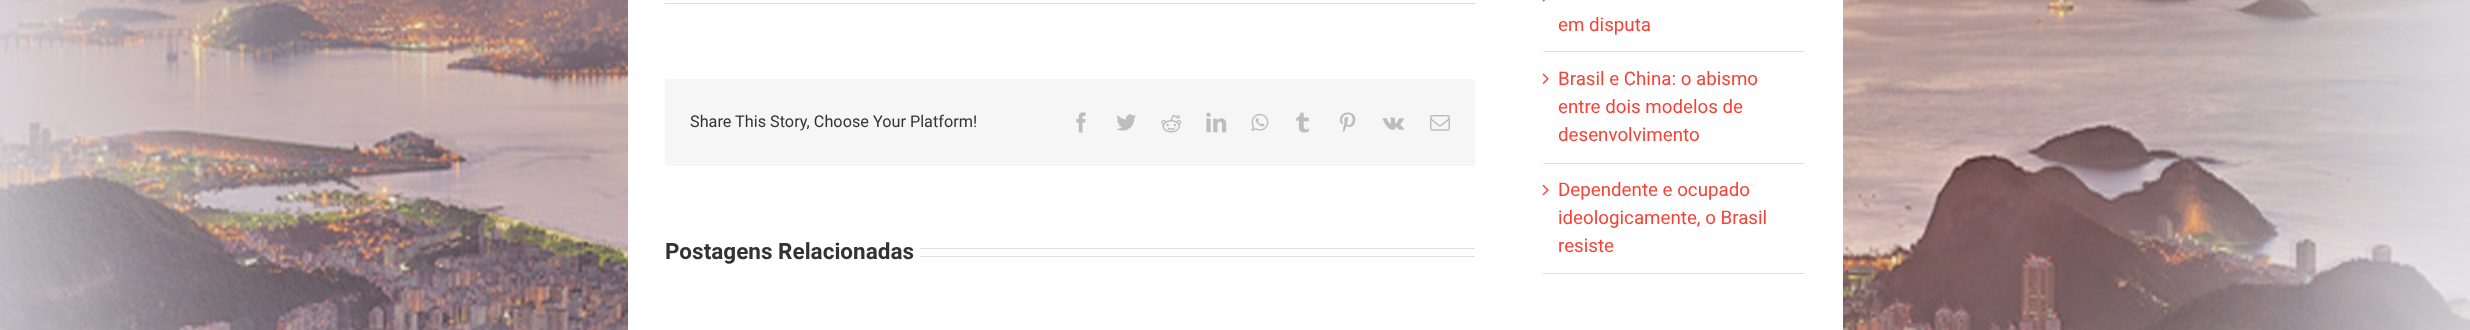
<!DOCTYPE html>
<meta charset="utf-8">
<style>body { margin: 0 } canvas { display: block }</style>
<canvas id="canvas" width="2470" height="330"></canvas>
<img id="img1" src="img_01.png" hidden>
<img id="img2" src="img_02.png" hidden>
<img id="img3" src="img_03.png" hidden>
<img id="img4" src="img_04.png" hidden>
<img id="img5" src="img_05.png" hidden>
<img id="img6" src="img_06.png" hidden>
<img id="img7" src="img_07.png" hidden>
<img id="img8" src="img_08.png" hidden>
<img id="img9" src="img_09.png" hidden>
<img id="img10" src="img_10.png" hidden>
<img id="img11" src="img_11.png" hidden>
<img id="img12" src="img_12.png" hidden>
<img id="img13" src="img_13.png" hidden>
<script>
window.onload = function () {
	const canvas = document.getElementById("canvas");
	const ctx = canvas.getContext("2d");
	ctx.miterLimit = 4;
	ctx.fontKerning = "normal";
	function txt(s, x, y) {
		ctx.fillText(s, x, y);
	}
	function fill(x, y, w, h) {
		ctx.fillRect(x, y, w, h);
	}
	function img(id, x, y, w, h) {
		ctx.drawImage(document.getElementById(id), x, y, w, h);
	}

	ctx.fillStyle = "#FFFFFF";
	fill(0, 0, 2470, 330);
	img("img1", 0, 0, 2470, 330);
	fill(628, 0, 1215, 330);
	ctx.fillStyle = "#E0DEDE";
	fill(665, 3, 810, 1);
	ctx.fillStyle = "#F6F6F6";
	fill(665, 79, 810, 87);
	img("img2", 1076, 112, 10, 21);
	img("img3", 1116, 114, 20, 17);
	img("img4", 1161, 115, 21, 18);
	img("img5", 1206, 112, 21, 21);
	img("img6", 1251, 113, 18, 18);
	img("img7", 1296, 112, 13, 21);
	img("img8", 1339, 112, 17, 21);
	img("img9", 1382, 117, 22, 13);
	img("img10", 1430, 115, 20, 16);
	ctx.fillStyle = "#E0DEDE";
	fill(920, 248, 555, 1);
	fill(920, 256, 555, 1);
	fill(1543, 51, 262, 1);
	img("img11", 1542, 0, 3, 2);
	fill(1543, 163, 262, 1);
	img("img12", 1542, 73, 7, 11);
	fill(1543, 273, 262, 1);
	img("img13", 1542, 184, 7, 12);
	ctx.font = "16.25px Roboto";
	ctx.fillStyle = "#333333";
	txt("Share This Story, Choose Your Platform!", 690, 127);
	ctx.font = "bold 22.5px Roboto";
	txt("Postagens Relacionadas", 665, 259);
	ctx.font = "18.75px Roboto";
	ctx.fillStyle = "#F44336";
	txt("em disputa", 1558, 31);
	txt("Brasil e China: o abismo", 1558, 85);
	txt("entre dois modelos de", 1558, 113);
	txt("desenvolvimento", 1558, 141);
	txt("Dependente e ocupado", 1558, 196);
	txt("ideologicamente, o Brasil", 1558, 224);
	txt("resiste", 1558, 252);
};
</script>
